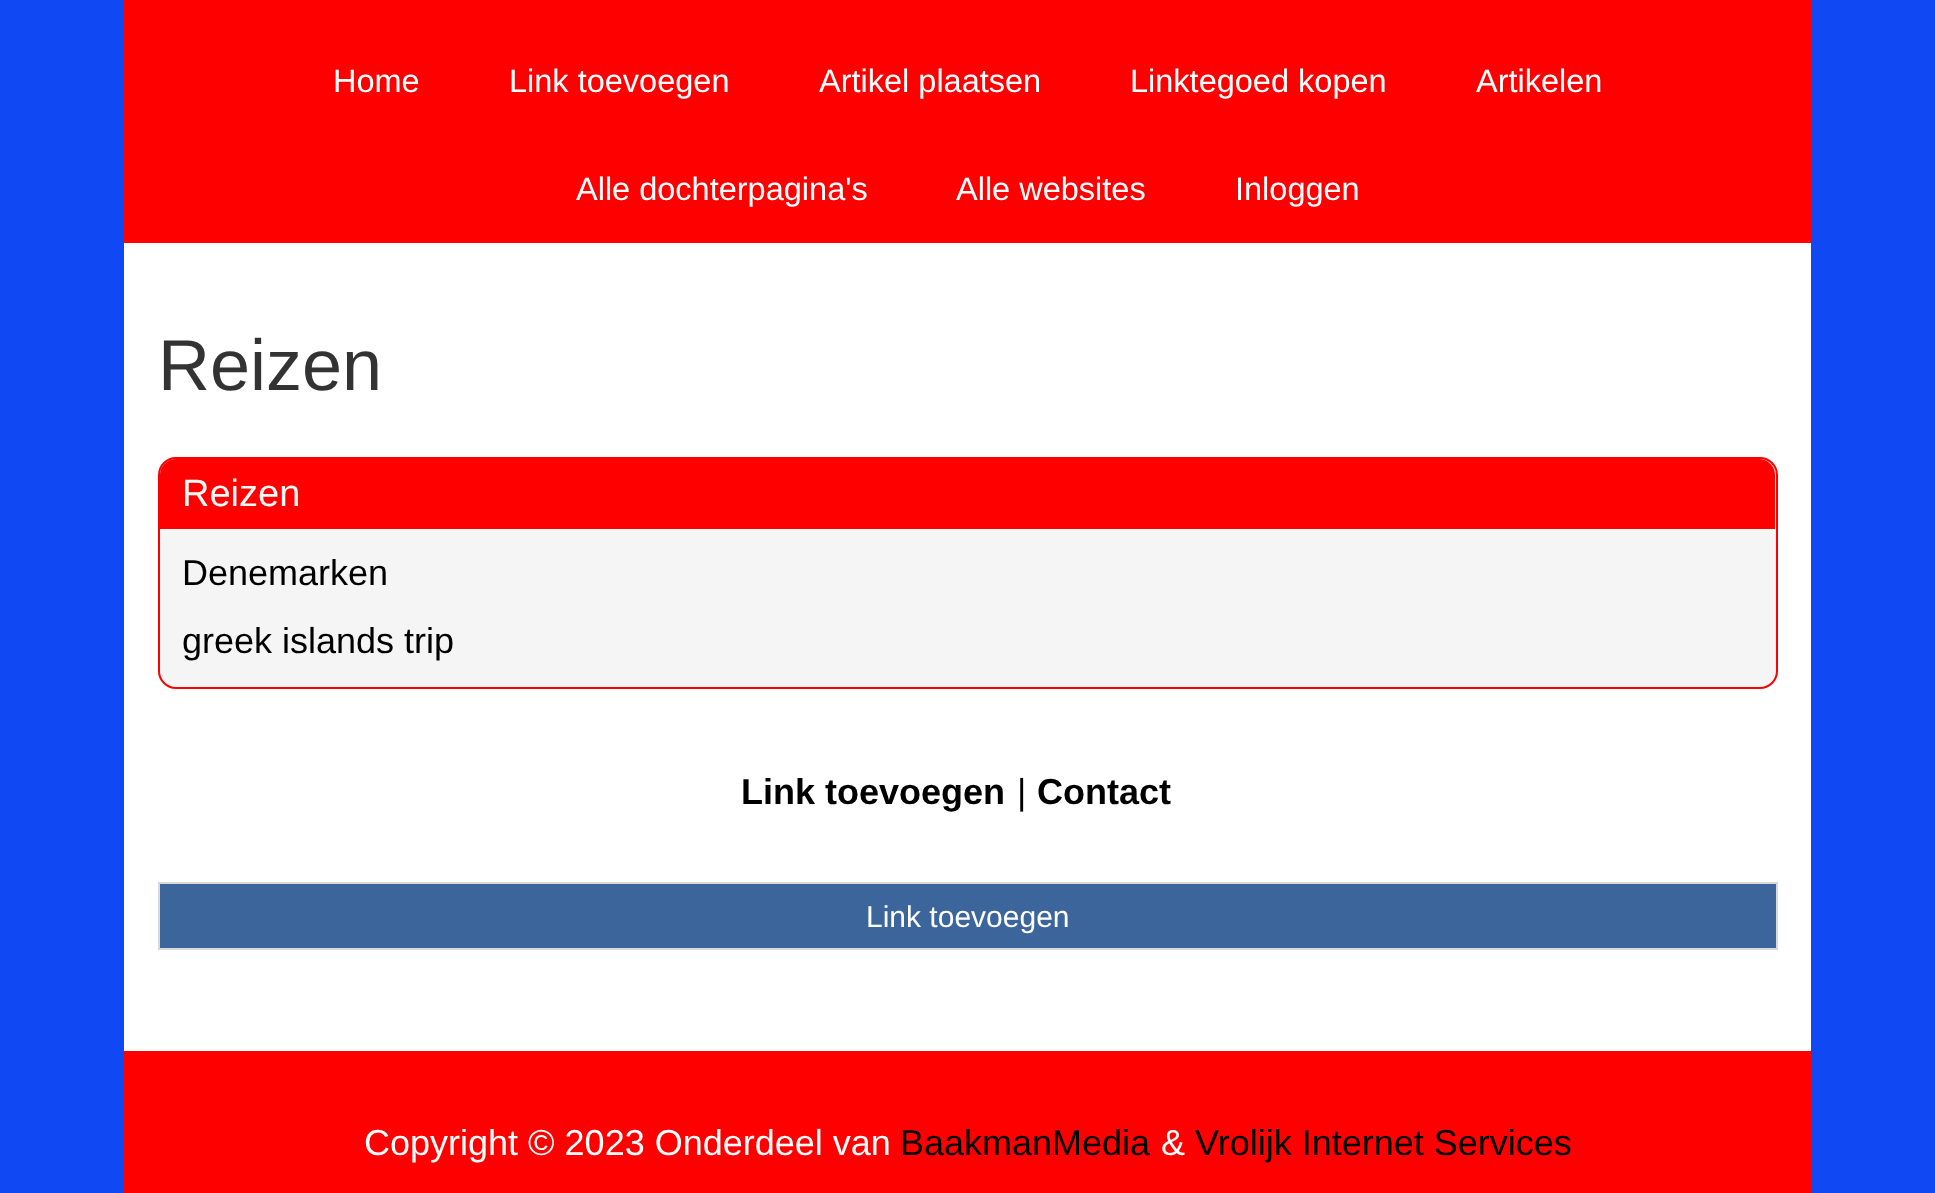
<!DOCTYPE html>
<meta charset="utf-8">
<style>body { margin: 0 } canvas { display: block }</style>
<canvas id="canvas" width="1935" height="1193"></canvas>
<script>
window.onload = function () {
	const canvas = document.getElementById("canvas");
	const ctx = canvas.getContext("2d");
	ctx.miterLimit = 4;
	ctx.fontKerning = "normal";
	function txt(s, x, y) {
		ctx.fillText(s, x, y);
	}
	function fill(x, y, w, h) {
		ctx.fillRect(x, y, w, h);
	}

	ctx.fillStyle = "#1049F4";
	fill(0, 0, 1935, 1193);
	ctx.fillStyle = "#FF0000";
	fill(124, 0, 1687, 243);
	ctx.fillStyle = "#FFFFFF";
	fill(124, 243, 1687, 808);
	ctx.fillStyle = "#F5F5F5";
	ctx.beginPath();
	ctx.roundRect(159, 458, 1618, 230, 17);
	ctx.fill();
	ctx.strokeStyle = "#FF0000";
	ctx.lineWidth = 2;
	ctx.stroke();
	ctx.fillStyle = "#FF0000";
	ctx.beginPath();
	ctx.roundRect(160, 459, 1615, 70, [16, 16, 0, 0]);
	ctx.fill();
	ctx.fillStyle = "#3B659B";
	ctx.beginPath();
	ctx.rect(159, 883, 1618, 66);
	ctx.fill();
	ctx.strokeStyle = "#DADADA";
	ctx.stroke();
	ctx.fillStyle = "#FF0000";
	fill(124, 1051, 1687, 142);
	ctx.font = "32.5px Liberation Sans";
	ctx.fillStyle = "#FFFFFF";
	txt("Home", 333, 92);
	txt("Link toevoegen", 509, 92);
	txt("Artikel plaatsen", 819, 92);
	txt("Linktegoed kopen", 1130, 92);
	txt("Artikelen", 1476, 92);
	txt("Alle dochterpagina's", 576, 200);
	txt("Alle websites", 956, 200);
	txt("Inloggen", 1235, 200);
	ctx.font = "72px Liberation Sans";
	ctx.fillStyle = "#333333";
	txt("Reizen", 158, 390);
	ctx.font = "38px Liberation Sans";
	ctx.fillStyle = "#F8F8F7";
	txt("Reizen", 182, 506);
	ctx.font = "36px Liberation Sans";
	ctx.fillStyle = "#000000";
	txt("Denemarken", 182, 585);
	txt("greek islands trip", 182, 653);
	ctx.font = "bold 36px Liberation Sans";
	txt("Link toevoegen", 741, 804);
	ctx.font = "36px Liberation Sans";
	txt("|", 1017, 804);
	ctx.font = "bold 36px Liberation Sans";
	txt("Contact", 1037, 804);
	ctx.font = "30px Liberation Sans";
	ctx.fillStyle = "#FFFFFF";
	txt("Link toevoegen", 866, 927);
	ctx.font = "36px Liberation Sans";
	txt("Copyright © 2023 Onderdeel van", 364, 1155);
	ctx.fillStyle = "#000000";
	txt("BaakmanMedia", 900, 1155);
	ctx.fillStyle = "#FFFFFF";
	txt("&", 1161, 1155);
	ctx.fillStyle = "#000000";
	txt("Vrolijk Internet Services", 1195, 1155);
};
</script>
